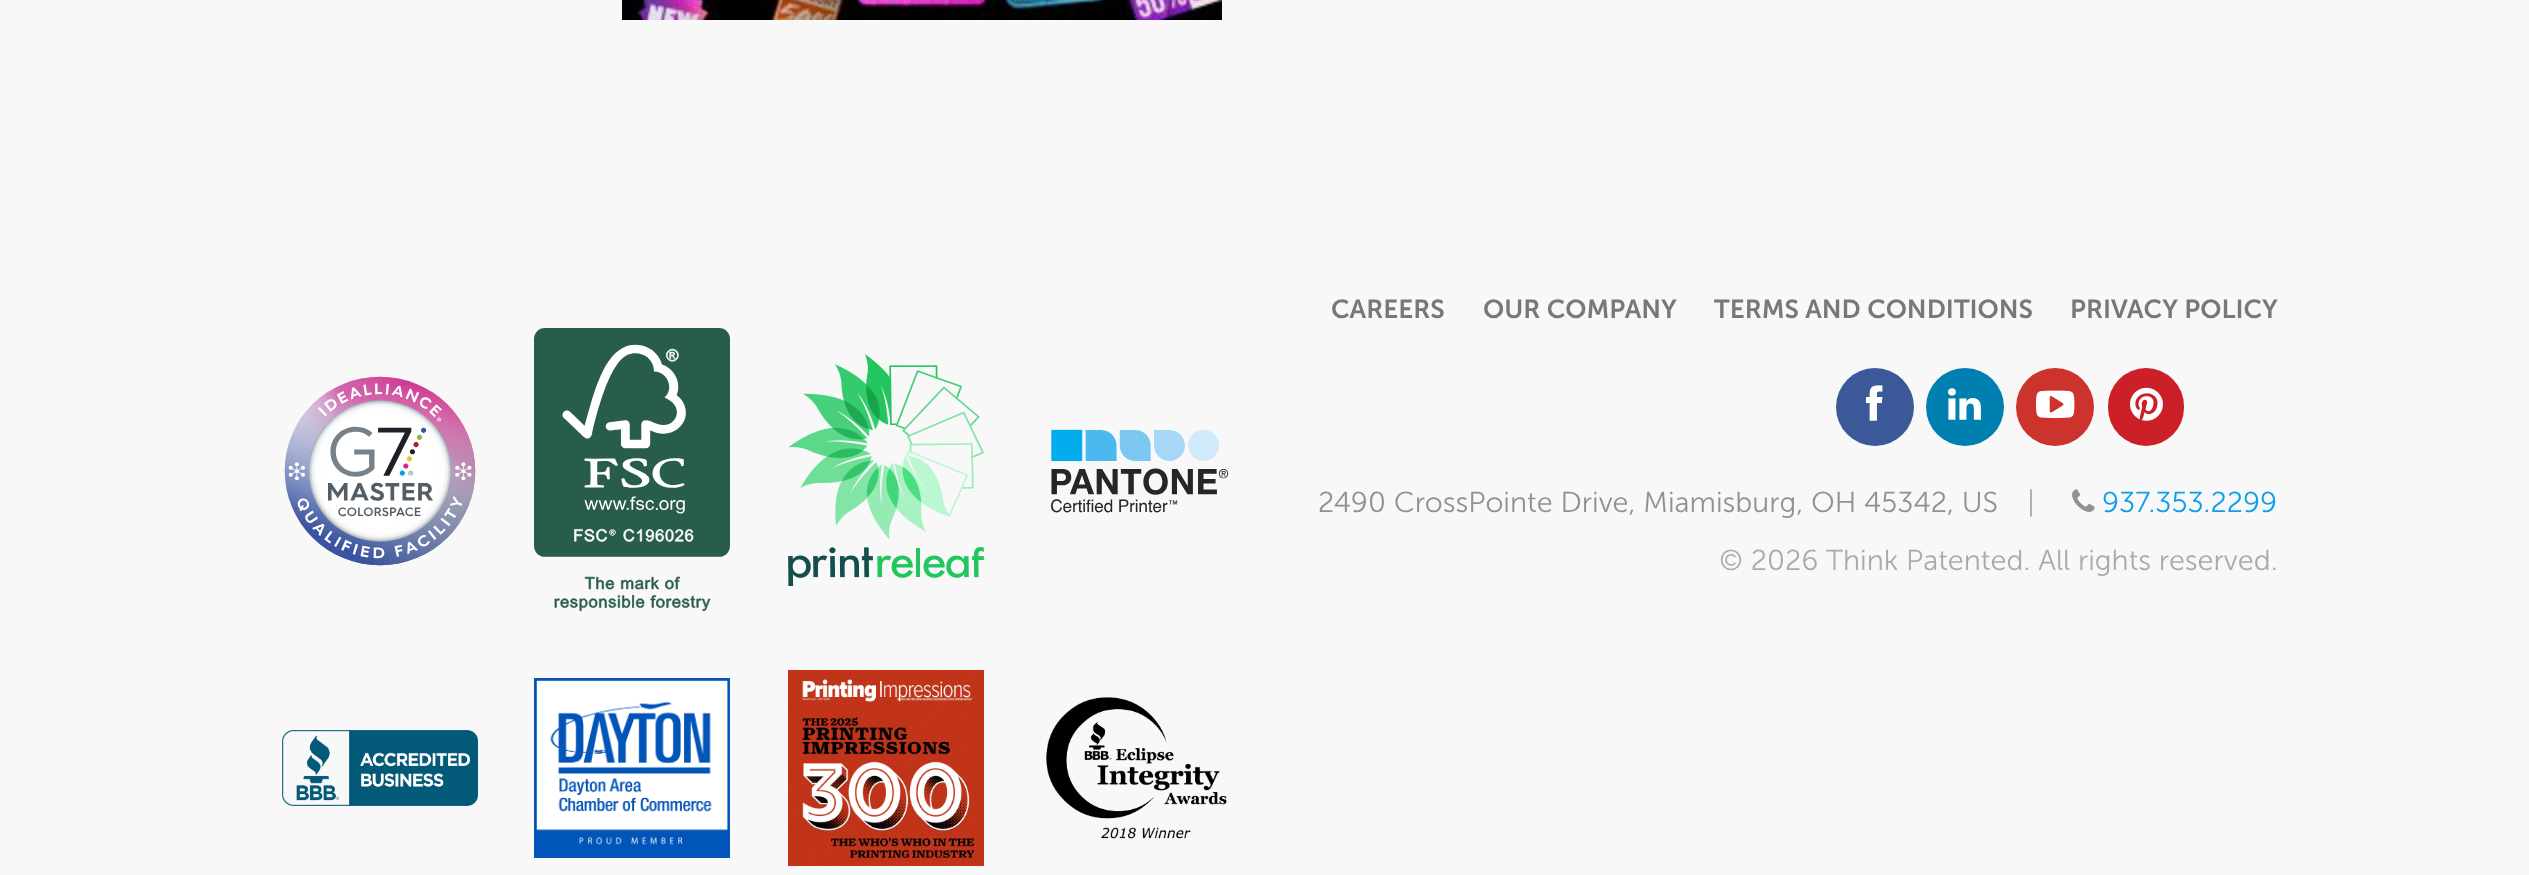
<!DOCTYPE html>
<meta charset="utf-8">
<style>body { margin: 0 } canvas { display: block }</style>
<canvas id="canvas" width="2529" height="875"></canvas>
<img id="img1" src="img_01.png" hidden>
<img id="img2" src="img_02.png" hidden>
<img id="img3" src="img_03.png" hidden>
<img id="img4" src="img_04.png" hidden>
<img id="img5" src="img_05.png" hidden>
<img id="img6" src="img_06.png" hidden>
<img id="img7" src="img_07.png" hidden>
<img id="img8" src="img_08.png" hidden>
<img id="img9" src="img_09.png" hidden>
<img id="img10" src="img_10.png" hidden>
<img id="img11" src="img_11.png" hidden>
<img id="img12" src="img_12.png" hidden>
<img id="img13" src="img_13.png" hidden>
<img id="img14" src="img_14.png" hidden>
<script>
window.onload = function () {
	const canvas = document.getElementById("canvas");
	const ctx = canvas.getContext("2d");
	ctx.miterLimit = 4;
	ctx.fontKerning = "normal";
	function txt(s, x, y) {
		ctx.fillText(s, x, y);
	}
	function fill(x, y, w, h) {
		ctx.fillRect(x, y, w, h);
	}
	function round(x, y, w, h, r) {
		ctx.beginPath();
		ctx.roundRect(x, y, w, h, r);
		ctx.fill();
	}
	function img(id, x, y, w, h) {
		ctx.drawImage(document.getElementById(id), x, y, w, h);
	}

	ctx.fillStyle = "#F8F8F8";
	fill(0, 0, 2529, 875);
	img("img1", 622, 0, 600, 20);
	img("img2", 284, 376, 192, 190);
	img("img3", 534, 328, 196, 284);
	img("img4", 788, 354, 196, 232);
	img("img5", 1051, 429, 178, 84);
	img("img6", 282, 730, 196, 76);
	img("img7", 534, 678, 196, 180);
	img("img8", 788, 670, 196, 196);
	img("img9", 1046, 697, 181, 142);
	ctx.fillStyle = "#3B5998";
	ctx.beginPath();
	ctx.arc(1875, 407, 39, 0, Math.PI * 2);
	ctx.fill();
	img("img10", 1866, 385, 17, 36);
	ctx.fillStyle = "#007FB1";
	ctx.beginPath();
	ctx.arc(1965, 407, 39, 0, Math.PI * 2);
	ctx.fill();
	img("img11", 1948, 388, 33, 32);
	ctx.fillStyle = "#CD332D";
	ctx.beginPath();
	ctx.arc(2055, 407, 39, 0, Math.PI * 2);
	ctx.fill();
	img("img12", 2036, 390, 39, 28);
	ctx.fillStyle = "#CB2027";
	round(2108, 368, 76, 78, 38);
	img("img13", 2130, 387, 33, 34);
	img("img14", 2072, 489, 23, 23);
	ctx.font = "600 26px 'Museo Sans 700'";
	ctx.fillStyle = "#787878";
	txt("CAREERS", 1331, 318);
	txt("OUR COMPANY", 1483, 318);
	txt("TERMS AND CONDITIONS", 1714, 318);
	txt("PRIVACY POLICY", 2070, 318);
	ctx.font = "300 28.8px 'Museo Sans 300'";
	ctx.fillStyle = "#919191";
	txt("2490 CrossPointe Drive, Miamisburg, OH 45342, US", 1318, 512);
	ctx.fillStyle = "#AAAAAA";
	txt("|", 2027, 512);
	ctx.fillStyle = "#0F9DE9";
	txt("937.353.2299", 2102, 512);
	ctx.fillStyle = "#AAAAAA";
	txt("© 2026 Think Patented. All rights reserved.", 1719, 570);
};
</script>
